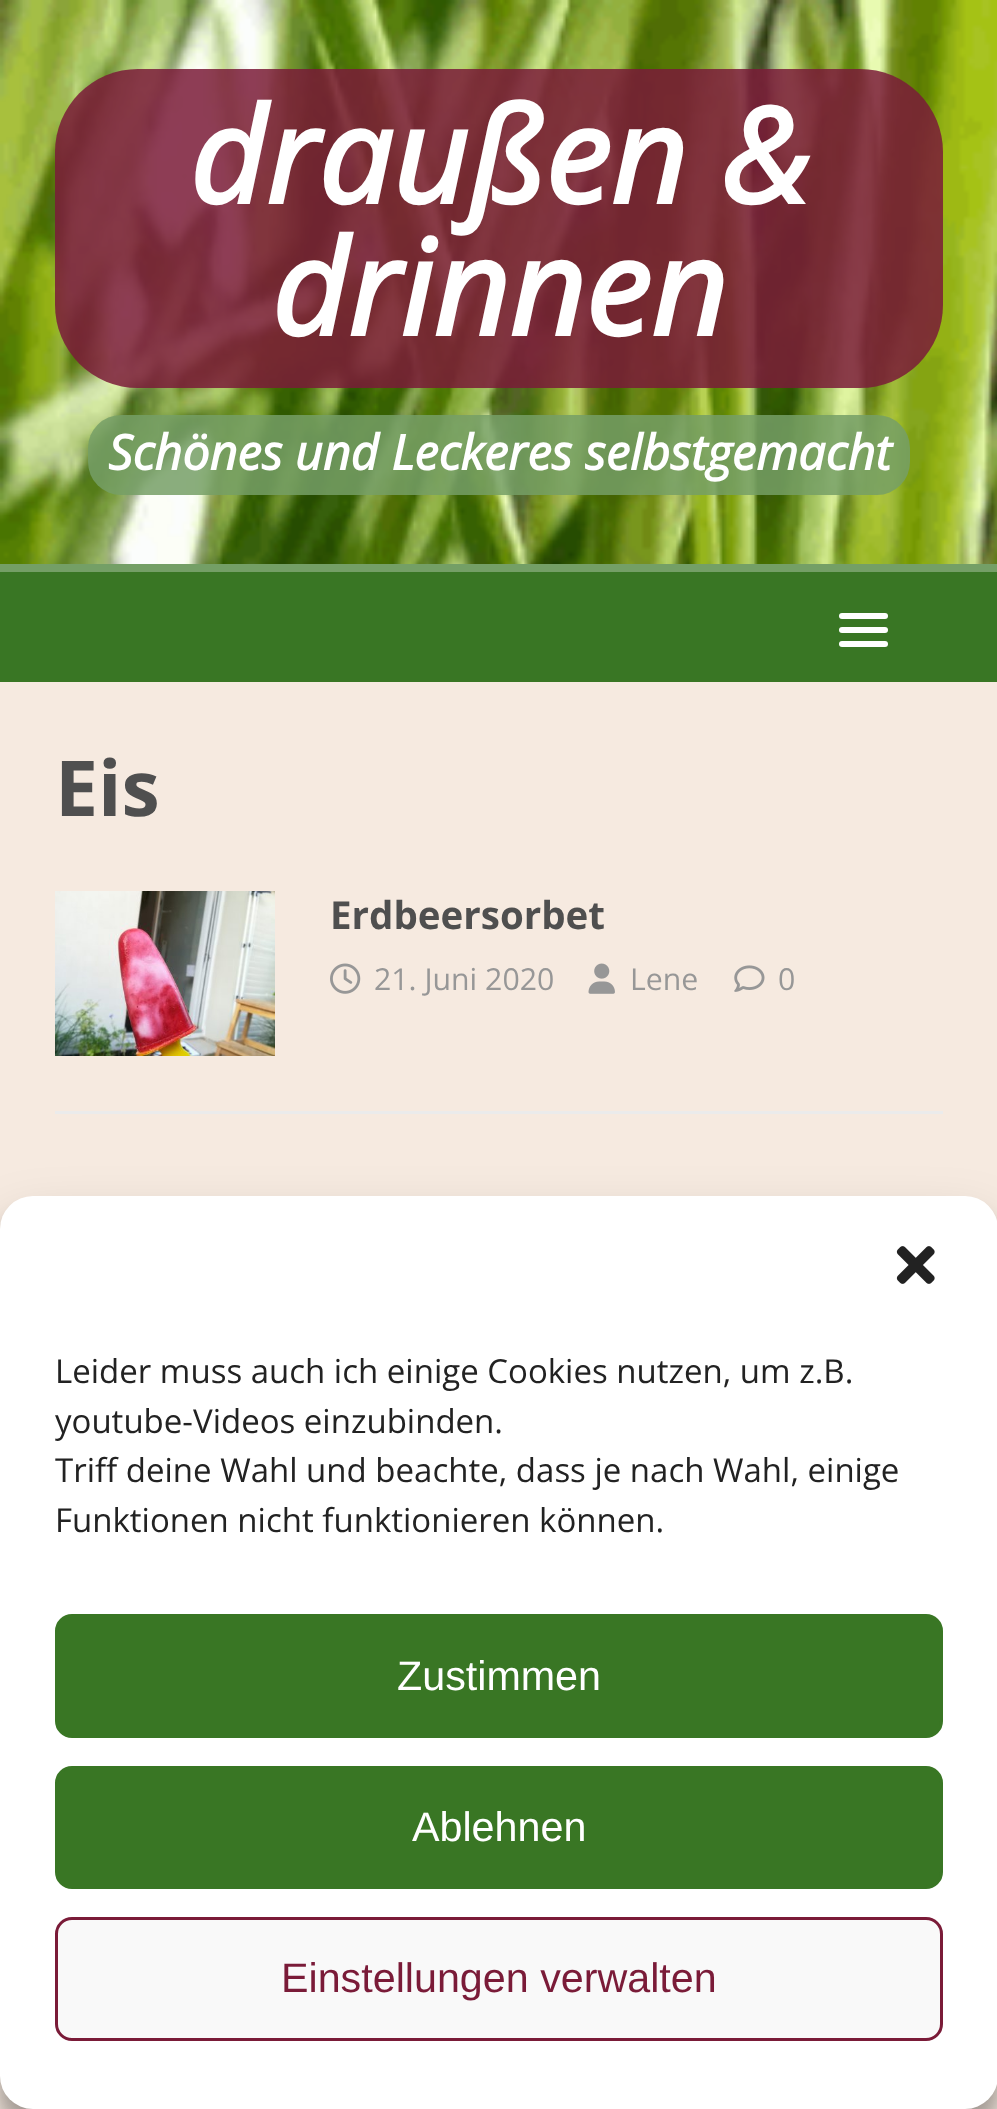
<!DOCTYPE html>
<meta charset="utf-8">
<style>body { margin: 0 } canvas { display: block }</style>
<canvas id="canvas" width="997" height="2109"></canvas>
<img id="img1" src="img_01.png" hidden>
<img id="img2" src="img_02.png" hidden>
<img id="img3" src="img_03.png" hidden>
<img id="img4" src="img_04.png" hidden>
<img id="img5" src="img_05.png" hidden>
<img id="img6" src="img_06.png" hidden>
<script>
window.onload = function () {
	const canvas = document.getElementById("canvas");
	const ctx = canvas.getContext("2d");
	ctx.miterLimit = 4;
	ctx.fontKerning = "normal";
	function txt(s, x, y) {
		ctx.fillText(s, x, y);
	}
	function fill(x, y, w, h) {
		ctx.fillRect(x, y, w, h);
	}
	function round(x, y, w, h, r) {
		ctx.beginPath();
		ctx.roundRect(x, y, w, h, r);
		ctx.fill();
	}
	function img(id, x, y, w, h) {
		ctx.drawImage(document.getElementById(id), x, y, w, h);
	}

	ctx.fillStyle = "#F6EAE0";
	fill(0, 0, 997, 2109);
	img("img1", 0, 0, 997, 564);
	ctx.fillStyle = "rgba(122, 27, 56, 0.85)";
	round(55, 69, 888, 319, 83);
	ctx.fillStyle = "rgba(117, 159, 102, 0.85)";
	round(88, 415, 822, 80, 33);
	ctx.fillStyle = "#397624";
	fill(0, 572, 997, 110);
	ctx.fillStyle = "#749F66";
	fill(0, 564, 997, 8);
	ctx.fillStyle = "#FFFFFF";
	round(839, 613, 49, 6, 3);
	round(839, 627, 49, 6, 3);
	round(839, 641, 49, 6, 3);
	ctx.fillStyle = "#EBEBEB";
	fill(55, 1111, 888, 3);
	img("img2", 55, 891, 220, 165);
	img("img3", 330, 963, 31, 31);
	img("img4", 588, 963, 27, 31);
	img("img5", 734, 965, 31, 27);
	ctx.fillStyle = "rgba(0, 0, 0, 0.23)";
	ctx.filter = "blur(8px)";
	ctx.beginPath();
	ctx.roundRect(0, 1213, 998, 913, 33);
	ctx.fill();
	ctx.filter = "none";
	ctx.fillStyle = "rgba(0, 0, 0, 0.19)";
	ctx.filter = "blur(27.5px)";
	ctx.beginPath();
	ctx.roundRect(0, 1224, 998, 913, 33);
	ctx.fill();
	ctx.filter = "none";
	ctx.fillStyle = "#FFFFFF";
	round(0, 1196, 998, 913, 33);
	img("img6", 896, 1246, 39, 38);
	ctx.fillStyle = "#397624";
	ctx.beginPath();
	ctx.roundRect(56.5, 1615.5, 885, 121, 15.5);
	ctx.fill();
	ctx.strokeStyle = "#397624";
	ctx.lineWidth = 3;
	ctx.stroke();
	ctx.beginPath();
	ctx.roundRect(56.5, 1767.5, 885, 120, 15.5);
	ctx.fill();
	ctx.stroke();
	ctx.fillStyle = "#F9F9F9";
	ctx.beginPath();
	ctx.roundRect(56.5, 1918.5, 885, 121, 15.5);
	ctx.fill();
	ctx.strokeStyle = "#7A1B38";
	ctx.stroke();
	ctx.font = "italic bold 132px Open Sans";
	ctx.fillStyle = "#FFFFFF";
	txt("draußen &", 189, 204);
	txt("drinnen", 271, 336);
	ctx.font = "italic bold 48.4px Open Sans";
	txt("Schönes und Leckeres selbstgemacht", 108, 470);
	ctx.font = "bold 77px Open Sans";
	ctx.fillStyle = "#4F4F4F";
	txt("Eis", 55, 816);
	ctx.font = "bold 38.5px Open Sans";
	txt("Erdbeersorbet", 330, 929);
	ctx.font = "30.25px Open Sans";
	ctx.fillStyle = "#979797";
	txt("21. Juni 2020", 374, 990);
	txt("Lene", 630, 990);
	txt("0", 778, 990);
	ctx.font = "33px Open Sans";
	ctx.fillStyle = "#222222";
	txt("Leider muss auch ich einige Cookies nutzen, um z.B.", 55, 1383);
	txt("youtube-Videos einzubinden.", 55, 1433);
	txt("Triff deine Wahl und beachte, dass je nach Wahl, einige", 55, 1482);
	txt("Funktionen nicht funktionieren können.", 55, 1532);
	ctx.font = "41.25px Liberation Sans";
	ctx.fillStyle = "#FFFFFF";
	txt("Zustimmen", 397, 1690);
	txt("Ablehnen", 412, 1841);
	ctx.fillStyle = "#7A1B38";
	txt("Einstellungen verwalten", 281, 1992);
};
</script>
